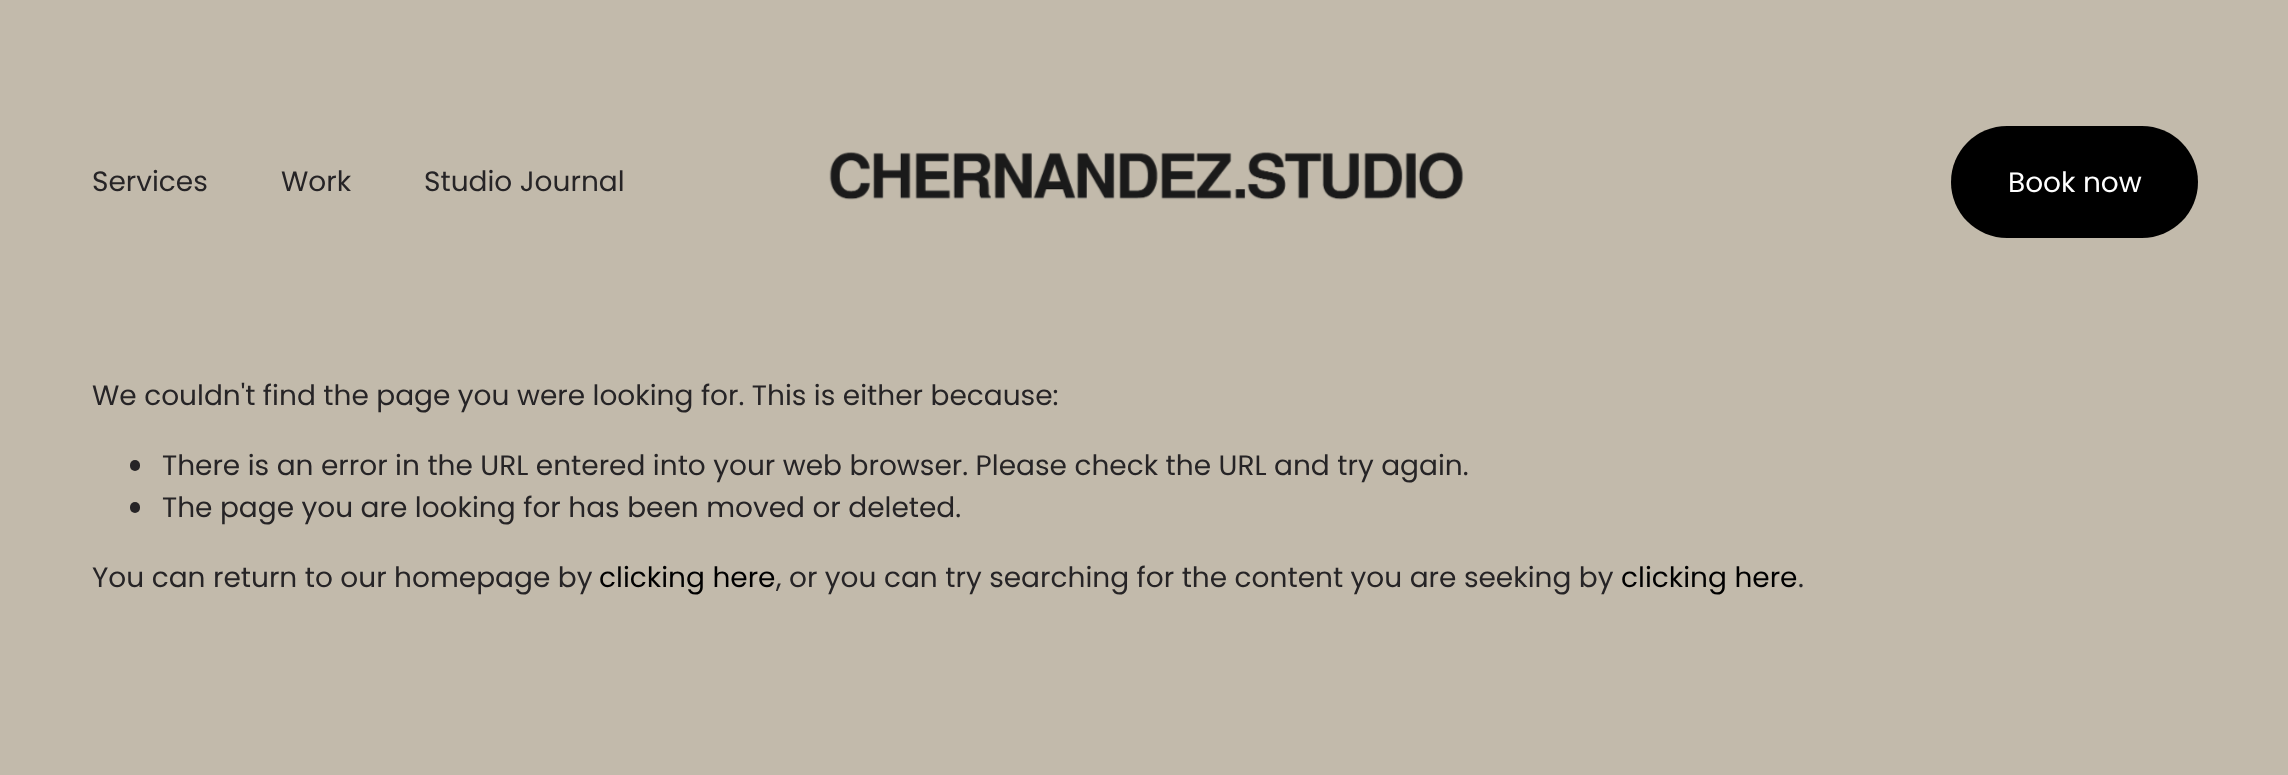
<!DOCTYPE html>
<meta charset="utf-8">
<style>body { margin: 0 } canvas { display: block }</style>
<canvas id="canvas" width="2288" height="775"></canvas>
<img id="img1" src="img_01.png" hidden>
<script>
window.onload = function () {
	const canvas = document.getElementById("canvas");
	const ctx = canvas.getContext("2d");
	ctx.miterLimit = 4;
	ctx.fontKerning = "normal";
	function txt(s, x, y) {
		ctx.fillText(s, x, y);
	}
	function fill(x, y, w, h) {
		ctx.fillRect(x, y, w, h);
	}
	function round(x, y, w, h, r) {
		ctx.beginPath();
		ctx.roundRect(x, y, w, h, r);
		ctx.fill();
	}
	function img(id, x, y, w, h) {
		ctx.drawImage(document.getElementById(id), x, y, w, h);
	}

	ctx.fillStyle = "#C2BAAB";
	fill(0, 0, 2288, 775);
	img("img1", 829, 152, 635, 48);
	ctx.fillStyle = "#000000";
	round(1951, 126, 247, 112, 56);
	ctx.fillStyle = "#262426";
	round(130, 460, 10, 11, 5);
	round(130, 502, 10, 11, 5);
	ctx.font = "28px Poppins";
	txt("Services", 92, 191);
	txt("Work", 281, 191);
	txt("Studio Journal", 424, 191);
	ctx.fillStyle = "#FFFFFF";
	txt("Book now", 2008, 192);
	ctx.fillStyle = "#262426";
	txt("We couldn't find the page you were looking for. This is either because:", 92, 405);
	txt("There is an error in the URL entered into your web browser. Please check the URL and try again.", 162, 475);
	txt("The page you are looking for has been moved or deleted.", 162, 517);
	txt("You can return to our homepage by", 92, 587);
	ctx.fillStyle = "#000000";
	txt("clicking here", 599, 587);
	ctx.fillStyle = "#262426";
	txt(", or you can try searching for the content you are seeking by", 776, 587);
	ctx.fillStyle = "#000000";
	txt("clicking here", 1621, 587);
	ctx.fillStyle = "#262426";
	txt(".", 1798, 587);
};
</script>
